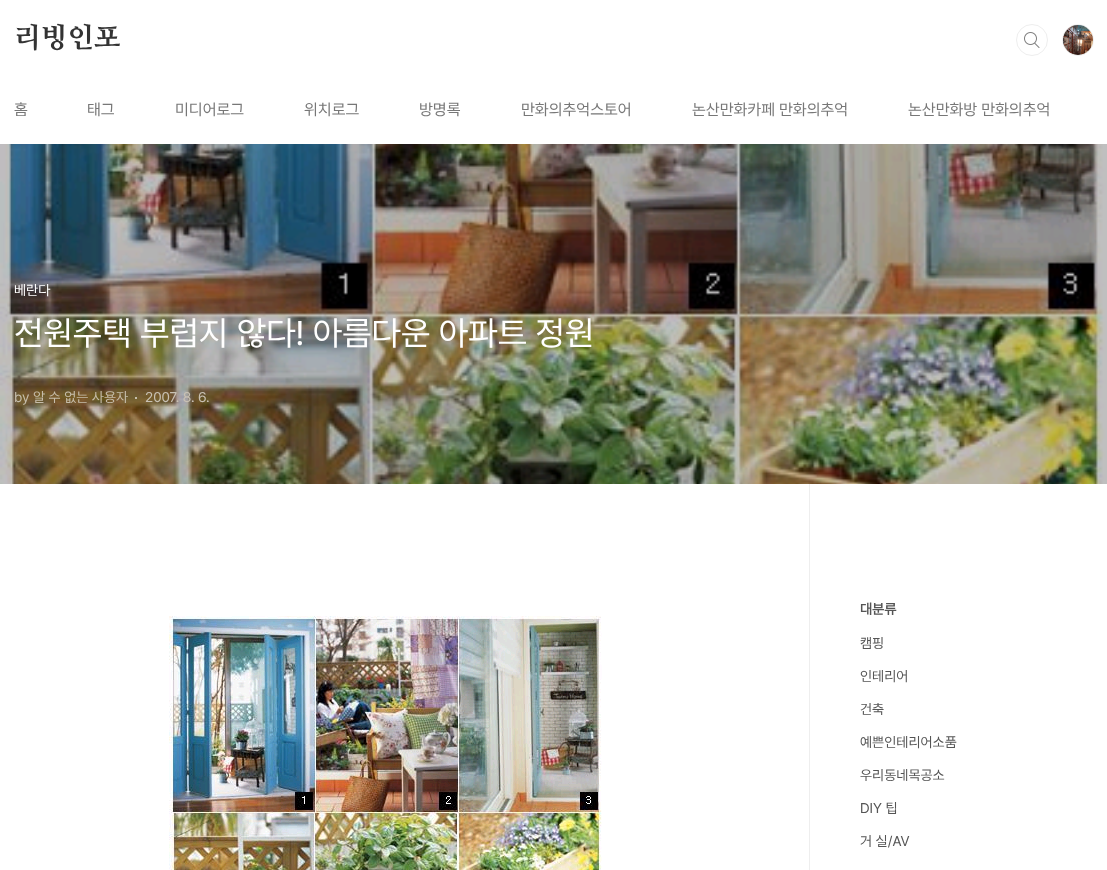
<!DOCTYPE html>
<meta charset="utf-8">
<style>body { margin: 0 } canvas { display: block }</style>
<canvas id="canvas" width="1107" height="870"></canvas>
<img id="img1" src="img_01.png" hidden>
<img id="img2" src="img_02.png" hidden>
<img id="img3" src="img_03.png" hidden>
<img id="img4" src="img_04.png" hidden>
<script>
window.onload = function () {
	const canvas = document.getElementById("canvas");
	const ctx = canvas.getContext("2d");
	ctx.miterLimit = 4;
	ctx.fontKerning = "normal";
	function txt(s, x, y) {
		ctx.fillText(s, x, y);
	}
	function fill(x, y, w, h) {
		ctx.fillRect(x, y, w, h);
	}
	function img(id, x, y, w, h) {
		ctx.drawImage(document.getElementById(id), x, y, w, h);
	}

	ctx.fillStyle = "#FFFFFF";
	fill(0, 0, 1107, 870);
	ctx.beginPath();
	ctx.arc(1032, 40, 14.5, 0, Math.PI * 2);
	ctx.strokeStyle = "#EEEEEE";
	ctx.stroke();
	ctx.beginPath();
	ctx.arc(1032, 40, 16, 0, Math.PI * 2);
	ctx.fill();
	img("img1", 1024, 32, 16, 16);
	ctx.beginPath();
	ctx.arc(1032, 40, 15.5, 0, Math.PI * 2);
	ctx.stroke();
	ctx.beginPath();
	ctx.arc(1078, 40, 15.5, 0, Math.PI * 2);
	ctx.stroke();
	img("img2", 1063, 25, 30, 30);
	img("img3", 0, 144, 1107, 340);
	ctx.fillStyle = "rgba(255, 255, 255, 0.6)";
	fill(135, 397, 2, 2);
	img("img4", 169, 616, 433, 254);
	ctx.fillStyle = "#EEEEEE";
	fill(809, 484, 1, 386);
	ctx.font = "800 28px NanumMyeongjo";
	ctx.fillStyle = "#333333";
	txt("리빙인포", 14, 47);
	ctx.font = "16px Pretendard";
	ctx.fillStyle = "#777777";
	txt("홈", 14, 115);
	txt("태그", 87, 115);
	txt("미디어로그", 175, 115);
	txt("위치로그", 304, 115);
	txt("방명록", 419, 115);
	txt("만화의추억스토어", 521, 115);
	txt("논산만화카페 만화의추억", 692, 115);
	txt("논산만화방 만화의추억", 908, 115);
	ctx.font = "14px Pretendard";
	ctx.fillStyle = "#FFFFFF";
	txt("베란다", 14, 295);
	ctx.font = "34px Pretendard";
	txt("전원주택 부럽지 않다! 아름다운 아파트 정원", 14, 345);
	ctx.font = "14px Pretendard";
	ctx.fillStyle = "#C6BDAB";
	txt("by 알 수 없는 사용자", 14, 402);
	ctx.fillStyle = "#C9C1B4";
	txt("2007. 8. 6.", 145, 402);
	ctx.font = "bold 14px Pretendard";
	ctx.fillStyle = "#555555";
	txt("대분류", 860, 614);
	ctx.font = "14px Pretendard";
	txt("캠핑", 860, 648);
	txt("인테리어", 860, 681);
	txt("건축", 860, 714);
	txt("예쁜인테리어소품", 860, 747);
	txt("우리동네목공소", 860, 780);
	txt("DIY 팁", 860, 813);
	txt("거 실/AV", 860, 846);
};
</script>
